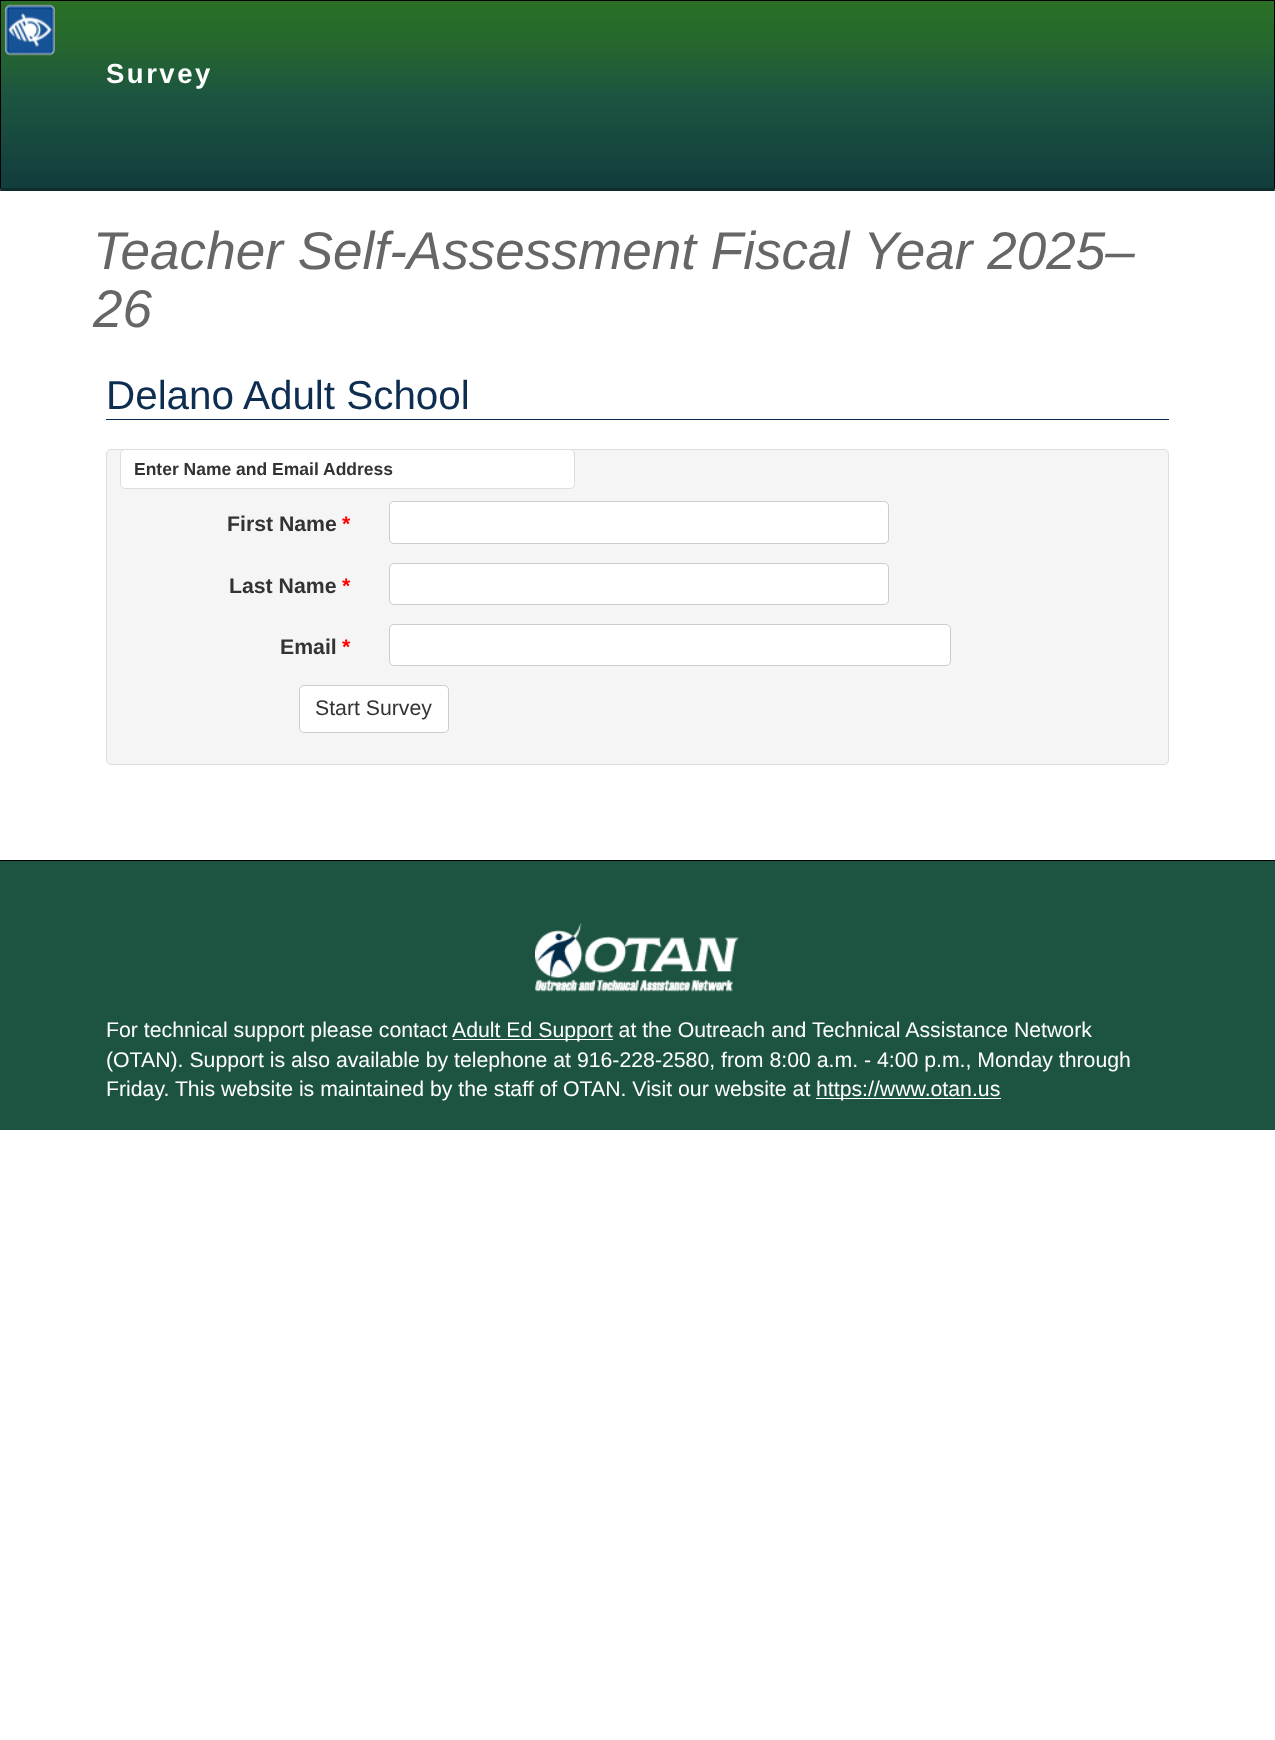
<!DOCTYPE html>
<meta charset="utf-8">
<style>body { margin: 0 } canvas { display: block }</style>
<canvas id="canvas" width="1275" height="1740"></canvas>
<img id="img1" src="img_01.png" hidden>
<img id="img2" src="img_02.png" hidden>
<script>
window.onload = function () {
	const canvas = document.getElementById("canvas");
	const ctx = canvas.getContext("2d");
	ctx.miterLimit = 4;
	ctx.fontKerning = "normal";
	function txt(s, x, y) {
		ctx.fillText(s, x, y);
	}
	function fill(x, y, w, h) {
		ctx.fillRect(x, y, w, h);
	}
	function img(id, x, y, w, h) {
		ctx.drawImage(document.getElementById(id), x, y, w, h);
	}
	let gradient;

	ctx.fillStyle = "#FFFFFF";
	fill(0, 0, 1275, 1740);
	gradient = ctx.createLinearGradient(638, 1.2, 638, 188);
	gradient.addColorStop(0, "#2A7025");
	gradient.addColorStop(0.23, "#25672E");
	gradient.addColorStop(0.52, "#1C5441");
	gradient.addColorStop(1, "#123D3D");
	ctx.fillStyle = gradient;
	fill(1, 1, 1273, 187);
	img("img1", 5, 4, 50, 52);
	ctx.fillStyle = "#000000";
	fill(0, 0, 1275, 1);
	ctx.beginPath();
	ctx.moveTo(1275, 0);
	ctx.lineTo(1275, 191);
	ctx.lineTo(1274, 188);
	ctx.lineTo(1274, 1);
	ctx.closePath();
	ctx.fill();
	ctx.fillStyle = "#0D2E2D";
	ctx.beginPath();
	ctx.moveTo(1275, 191);
	ctx.lineTo(0, 191);
	ctx.lineTo(1, 188);
	ctx.lineTo(1274, 188);
	ctx.closePath();
	ctx.fill();
	ctx.fillStyle = "#000000";
	ctx.beginPath();
	ctx.moveTo(0, 191);
	ctx.lineTo(0, 0);
	ctx.lineTo(1, 1);
	ctx.lineTo(1, 188);
	ctx.closePath();
	ctx.fill();
	ctx.fillStyle = "#0D2D51";
	fill(106, 419, 1063, 1);
	ctx.fillStyle = "#F5F5F5";
	ctx.beginPath();
	ctx.roundRect(106.5, 449.5, 1062, 315, 4.5);
	ctx.fill();
	ctx.strokeStyle = "#DDDDDD";
	ctx.stroke();
	ctx.fillStyle = "#FFFFFF";
	ctx.beginPath();
	ctx.roundRect(120.5, 449.5, 454, 39, 4.5);
	ctx.fill();
	ctx.stroke();
	ctx.beginPath();
	ctx.roundRect(389.5, 501.5, 499, 42, 4.5);
	ctx.fill();
	ctx.strokeStyle = "#CCCCCC";
	ctx.stroke();
	ctx.beginPath();
	ctx.roundRect(389.5, 563.5, 499, 41, 4.5);
	ctx.fill();
	ctx.stroke();
	ctx.beginPath();
	ctx.roundRect(389.5, 624.5, 561, 41, 4.5);
	ctx.fill();
	ctx.stroke();
	ctx.beginPath();
	ctx.roundRect(299.5, 685.5, 149, 47, 4.5);
	ctx.fill();
	ctx.stroke();
	ctx.fillStyle = "#1C5441";
	fill(0, 861, 1275, 269);
	ctx.fillStyle = "#000000";
	fill(0, 860, 1275, 1);
	img("img2", 535, 923, 204, 69);
	ctx.fillStyle = "#FFFFFF";
	fill(453, 1039, 160, 1);
	fill(816, 1098, 185, 1);
	ctx.letterSpacing = "2.5px";
	ctx.font = "bold 27.5px Liberation Sans";
	txt("Survey", 106, 83);
	ctx.letterSpacing = "0px";
	ctx.font = "italic 53.1px Liberation Sans";
	ctx.fillStyle = "#666666";
	txt("Teacher Self-Assessment Fiscal Year 2025–", 93, 269);
	txt("26", 93, 327);
	ctx.font = "40.4px Liberation Sans";
	ctx.fillStyle = "#0D2D51";
	txt("Delano Adult School", 106, 409);
	ctx.font = "bold 17.5px Liberation Sans";
	ctx.fillStyle = "#333333";
	txt("Enter Name and Email Address", 134, 475);
	ctx.font = "bold 21.25px Liberation Sans";
	txt("First Name", 227, 531);
	ctx.fillStyle = "#FF0000";
	txt("*", 342, 531);
	ctx.fillStyle = "#333333";
	txt("Last Name", 229, 593);
	ctx.fillStyle = "#FF0000";
	txt("*", 342, 593);
	ctx.fillStyle = "#333333";
	txt("Email", 280, 654);
	ctx.fillStyle = "#FF0000";
	txt("*", 342, 654);
	ctx.font = "21.25px Liberation Sans";
	ctx.fillStyle = "#333333";
	txt("Start Survey", 315, 715);
	ctx.fillStyle = "#FFFFFF";
	txt("For technical support please contact", 106, 1037);
	txt("Adult Ed Support at the Outreach and Technical Assistance Network", 452, 1037);
	txt("(OTAN). Support is also available by telephone at 916-228-2580, from 8:00 a.m. - 4:00 p.m., Monday through", 106, 1067);
	txt("Friday. This website is maintained by the staff of OTAN. Visit our website at", 106, 1096);
	txt("https://www.otan.us", 816, 1096);
};
</script>
